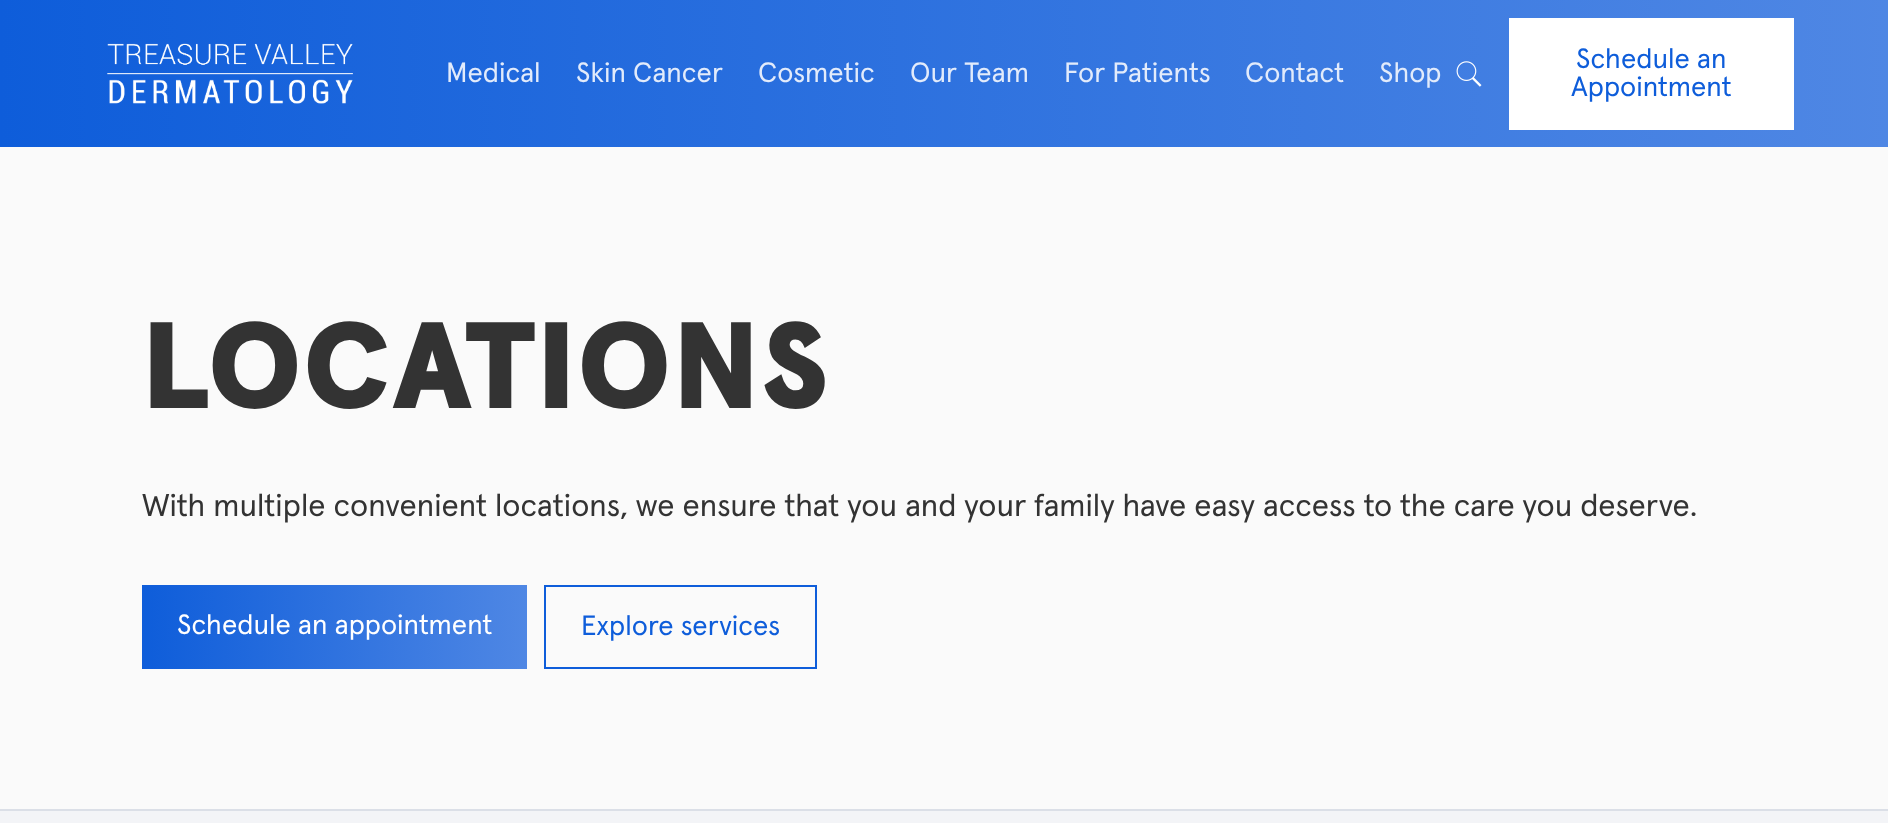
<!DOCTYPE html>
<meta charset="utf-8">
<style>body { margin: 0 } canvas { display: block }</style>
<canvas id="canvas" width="1888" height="823"></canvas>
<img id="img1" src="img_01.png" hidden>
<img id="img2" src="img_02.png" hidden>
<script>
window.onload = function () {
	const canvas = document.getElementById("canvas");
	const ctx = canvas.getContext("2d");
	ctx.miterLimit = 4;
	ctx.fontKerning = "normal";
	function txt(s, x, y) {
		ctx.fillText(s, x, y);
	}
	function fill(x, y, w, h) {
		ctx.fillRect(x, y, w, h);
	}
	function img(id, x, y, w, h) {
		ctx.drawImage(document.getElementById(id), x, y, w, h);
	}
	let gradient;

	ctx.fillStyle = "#FAFAFA";
	fill(0, 0, 1888, 823);
	gradient = ctx.createLinearGradient(0, 74, 1888, 73);
	gradient.addColorStop(0, "#0E5DDA");
	gradient.addColorStop(1, "#4F87E4");
	ctx.fillStyle = gradient;
	fill(0, 0, 1888, 147);
	img("img1", 107, 43, 246, 61);
	img("img2", 1456, 61, 26, 26);
	ctx.fillStyle = "#FFFFFF";
	fill(1509, 18, 285, 112);
	gradient = ctx.createLinearGradient(142, 627, 527, 627);
	gradient.addColorStop(0, "#0E5DDA");
	gradient.addColorStop(1, "#4F87E4");
	ctx.fillStyle = gradient;
	fill(142, 585, 385, 84);
	ctx.strokeStyle = "#0E5DDA";
	ctx.lineWidth = 2;
	ctx.strokeRect(545, 586, 271, 82);
	ctx.fillStyle = "#F3F4F7";
	fill(0, 811, 1888, 12);
	ctx.fillStyle = "#DBDFE7";
	fill(0, 809, 1888, 2);
	ctx.font = "28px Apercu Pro";
	ctx.fillStyle = "#E2EBFB";
	txt("Medical", 446, 82);
	txt("Skin Cancer", 576, 82);
	txt("Cosmetic", 758, 82);
	txt("Our Team", 910, 82);
	txt("For Patients", 1064, 82);
	txt("Contact", 1245, 82);
	txt("Shop", 1379, 82);
	ctx.fillStyle = "#0E5DDA";
	txt("Schedule an", 1576, 68);
	txt("Appointment", 1571, 96);
	ctx.letterSpacing = "1.75px";
	ctx.font = "900 122.5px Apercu";
	ctx.fillStyle = "#333333";
	txt("LOCATIONS", 142, 408);
	ctx.letterSpacing = "0px";
	ctx.font = "31.5px Apercu Pro";
	txt("With multiple convenient locations, we ensure that you and your family have easy access to the care you deserve.", 142, 516);
	ctx.font = "28px Apercu Pro";
	ctx.fillStyle = "#FFFFFF";
	txt("Schedule an appointment", 177, 634);
	ctx.fillStyle = "#0E5DDA";
	txt("Explore services", 581, 635);
};
</script>
